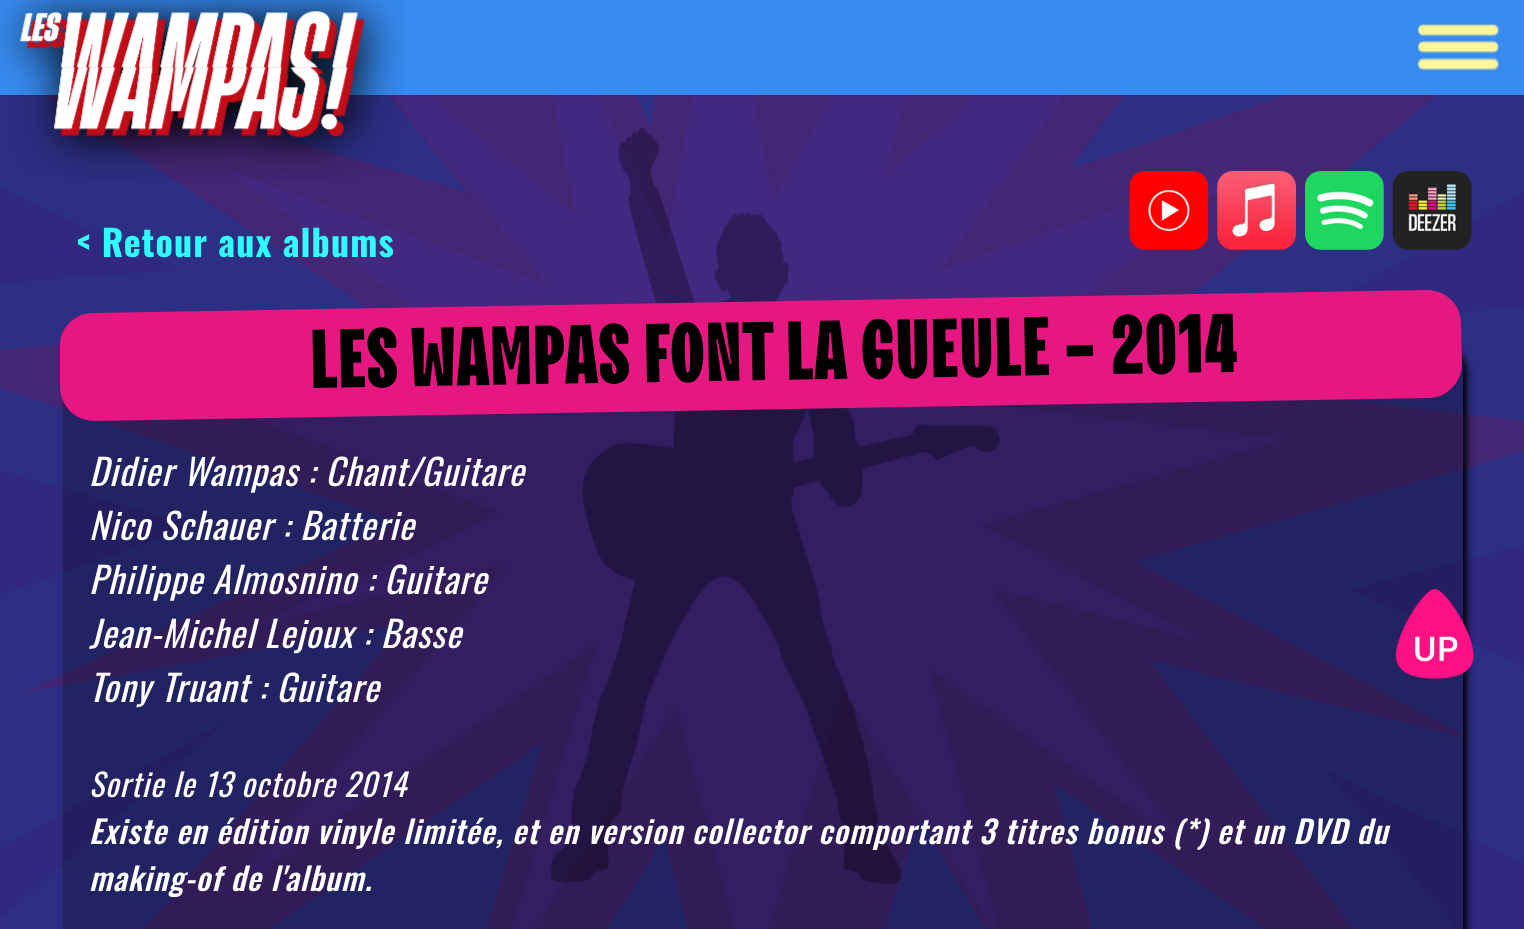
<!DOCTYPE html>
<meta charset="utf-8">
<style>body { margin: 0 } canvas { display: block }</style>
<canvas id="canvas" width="1524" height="929"></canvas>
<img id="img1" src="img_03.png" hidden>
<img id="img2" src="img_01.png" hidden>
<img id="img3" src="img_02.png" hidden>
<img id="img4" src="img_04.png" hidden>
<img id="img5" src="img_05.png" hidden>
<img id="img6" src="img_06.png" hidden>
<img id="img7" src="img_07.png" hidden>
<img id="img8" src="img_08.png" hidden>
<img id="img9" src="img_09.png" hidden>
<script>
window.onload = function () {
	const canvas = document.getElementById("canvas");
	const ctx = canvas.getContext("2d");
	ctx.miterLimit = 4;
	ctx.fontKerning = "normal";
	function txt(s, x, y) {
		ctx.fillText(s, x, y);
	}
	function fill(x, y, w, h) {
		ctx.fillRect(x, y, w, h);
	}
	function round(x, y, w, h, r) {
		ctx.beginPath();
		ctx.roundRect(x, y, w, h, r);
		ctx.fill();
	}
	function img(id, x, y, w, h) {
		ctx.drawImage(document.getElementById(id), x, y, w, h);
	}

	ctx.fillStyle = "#312B80";
	fill(0, 0, 1524, 929);
	ctx.fillStyle = "#378AEF";
	fill(0, 0, 1524, 95);
	img("img1", 0, 95, 1524, 834);
	img("img2", 0, 0, 405, 178);
	img("img3", 1417, 24, 83, 47);
	img("img4", 551, 128, 449, 757);
	img("img5", 1129, 171, 80, 79);
	img("img6", 1217, 171, 79, 79);
	img("img7", 1305, 171, 79, 79);
	img("img8", 1392, 171, 80, 79);
	ctx.save();
	ctx.beginPath();
	ctx.moveTo(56, 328);
	ctx.lineTo(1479, 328);
	ctx.lineTo(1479, 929);
	ctx.lineTo(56, 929);
	ctx.closePath();
	ctx.moveTo(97, 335);
	ctx.lineTo(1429, 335);
	ctx.bezierCurveTo(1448, 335, 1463, 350, 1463, 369);
	ctx.lineTo(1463, 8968);
	ctx.bezierCurveTo(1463, 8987, 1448, 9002, 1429, 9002);
	ctx.lineTo(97, 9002);
	ctx.bezierCurveTo(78, 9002, 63, 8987, 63, 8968);
	ctx.lineTo(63, 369);
	ctx.bezierCurveTo(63, 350, 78, 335, 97, 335);
	ctx.closePath();
	ctx.clip("evenodd");
	ctx.fillStyle = "#000000";
	ctx.filter = "blur(3.5px)";
	ctx.beginPath();
	ctx.roundRect(68, 340, 1399, 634, 34);
	ctx.fill();
	ctx.filter = "none";
	ctx.restore();
	ctx.fillStyle = "rgba(0, 0, 0, 0.25)";
	round(63, 335, 1400, 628, 34);
	ctx.fillStyle = "#E61781";
	ctx.beginPath();
	ctx.moveTo(93, 313);
	ctx.lineTo(1427, 290);
	ctx.bezierCurveTo(1445, 290, 1461, 304, 1461, 323);
	ctx.lineTo(1462, 364);
	ctx.bezierCurveTo(1462, 382, 1447, 398, 1429, 398);
	ctx.lineTo(95, 421);
	ctx.bezierCurveTo(76, 421, 61, 407, 60, 388);
	ctx.lineTo(60, 347);
	ctx.bezierCurveTo(59, 329, 74, 313, 93, 313);
	ctx.closePath();
	ctx.fill();
	img("img9", 1395, 589, 79, 90);
	ctx.letterSpacing = "1.12px";
	ctx.font = "bold 36px Oswald";
	ctx.fillStyle = "#2FFDFF";
	txt("< Retour aux albums", 76, 257);
	ctx.letterSpacing = "1.1px";
	ctx.font = "900 83.25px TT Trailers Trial";
	ctx.fillStyle = "#000000";
	ctx.save();
	ctx.translate(311, 388);
	ctx.rotate(-1 * Math.PI / 180);
	ctx.fillText("LES WAMPAS FONT LA GUEULE - 2014", 0, 0);
	ctx.restore();
	ctx.letterSpacing = "1.12px";
	ctx.font = "italic 36px Oswald";
	ctx.fillStyle = "#FFFFFF";
	txt("Didier Wampas : Chant/Guitare", 89, 486);
	txt("Nico Schauer : Batterie", 89, 540);
	txt("Philippe Almosnino : Guitare", 89, 594);
	txt("Jean-Michel Lejoux : Basse", 89, 648);
	txt("Tony Truant : Guitare", 89, 702);
	ctx.font = "italic 31.5px Oswald";
	txt("Sortie le 13 octobre 2014", 89, 797);
	ctx.font = "italic 500 31.5px Oswald";
	txt("Existe en édition vinyle limitée, et en version collector comportant 3 titres bonus (*) et un DVD du", 89, 844);
	txt("making-of de l'album.", 89, 891);
};
</script>
